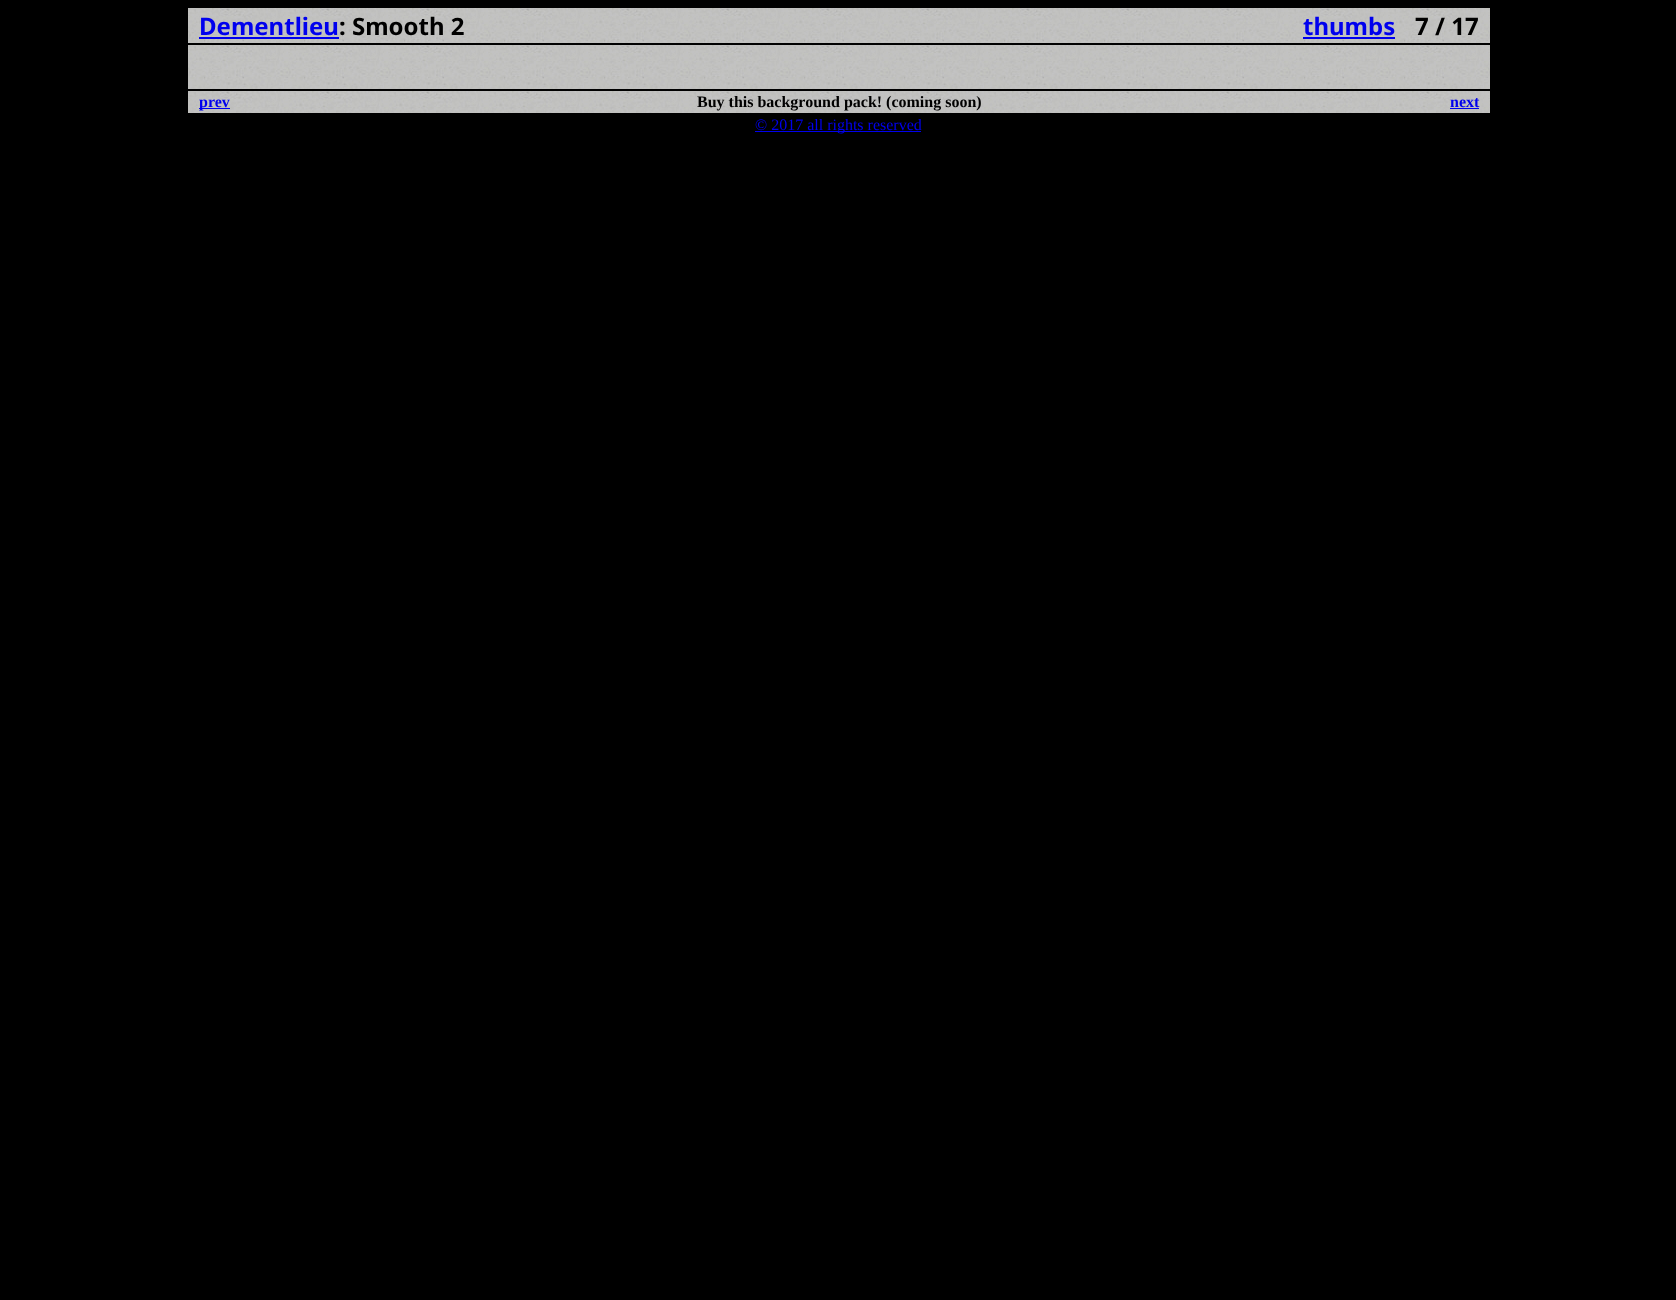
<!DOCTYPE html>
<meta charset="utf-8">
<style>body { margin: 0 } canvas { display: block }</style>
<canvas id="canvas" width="1676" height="1300"></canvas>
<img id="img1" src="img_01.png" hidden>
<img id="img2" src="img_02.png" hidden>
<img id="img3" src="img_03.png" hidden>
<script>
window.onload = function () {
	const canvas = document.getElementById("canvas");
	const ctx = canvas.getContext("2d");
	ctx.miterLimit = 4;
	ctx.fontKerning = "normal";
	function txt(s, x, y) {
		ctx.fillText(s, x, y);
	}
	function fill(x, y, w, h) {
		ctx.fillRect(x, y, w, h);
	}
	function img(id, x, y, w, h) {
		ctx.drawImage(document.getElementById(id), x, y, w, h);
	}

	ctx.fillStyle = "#000000";
	fill(0, 0, 1676, 1300);
	img("img1", 188, 8, 1302, 35);
	ctx.fillStyle = "#0000EE";
	fill(199, 37, 140, 2);
	fill(1303, 37, 92, 2);
	img("img2", 188, 45, 1302, 44);
	img("img3", 188, 91, 1302, 22);
	fill(199, 108, 31, 1);
	fill(1450, 108, 29, 1);
	fill(755, 131, 166, 1);
	ctx.font = "bold 24px Noto Sans";
	txt("Dementlieu", 199, 35);
	ctx.fillStyle = "#000000";
	txt(": Smooth 2", 339, 35);
	ctx.fillStyle = "#0000EE";
	txt("thumbs", 1303, 35);
	ctx.fillStyle = "#000000";
	txt("7 / 17", 1415, 35);
	ctx.font = "bold 16px Liberation Serif";
	ctx.fillStyle = "#0000EE";
	txt("prev", 199, 107);
	ctx.fillStyle = "#000000";
	txt("Buy this background pack! (coming soon)", 697, 107);
	ctx.fillStyle = "#0000EE";
	txt("next", 1450, 107);
	ctx.font = "16px Liberation Serif";
	txt("© 2017 all rights reserved", 755, 130);
};
</script>
